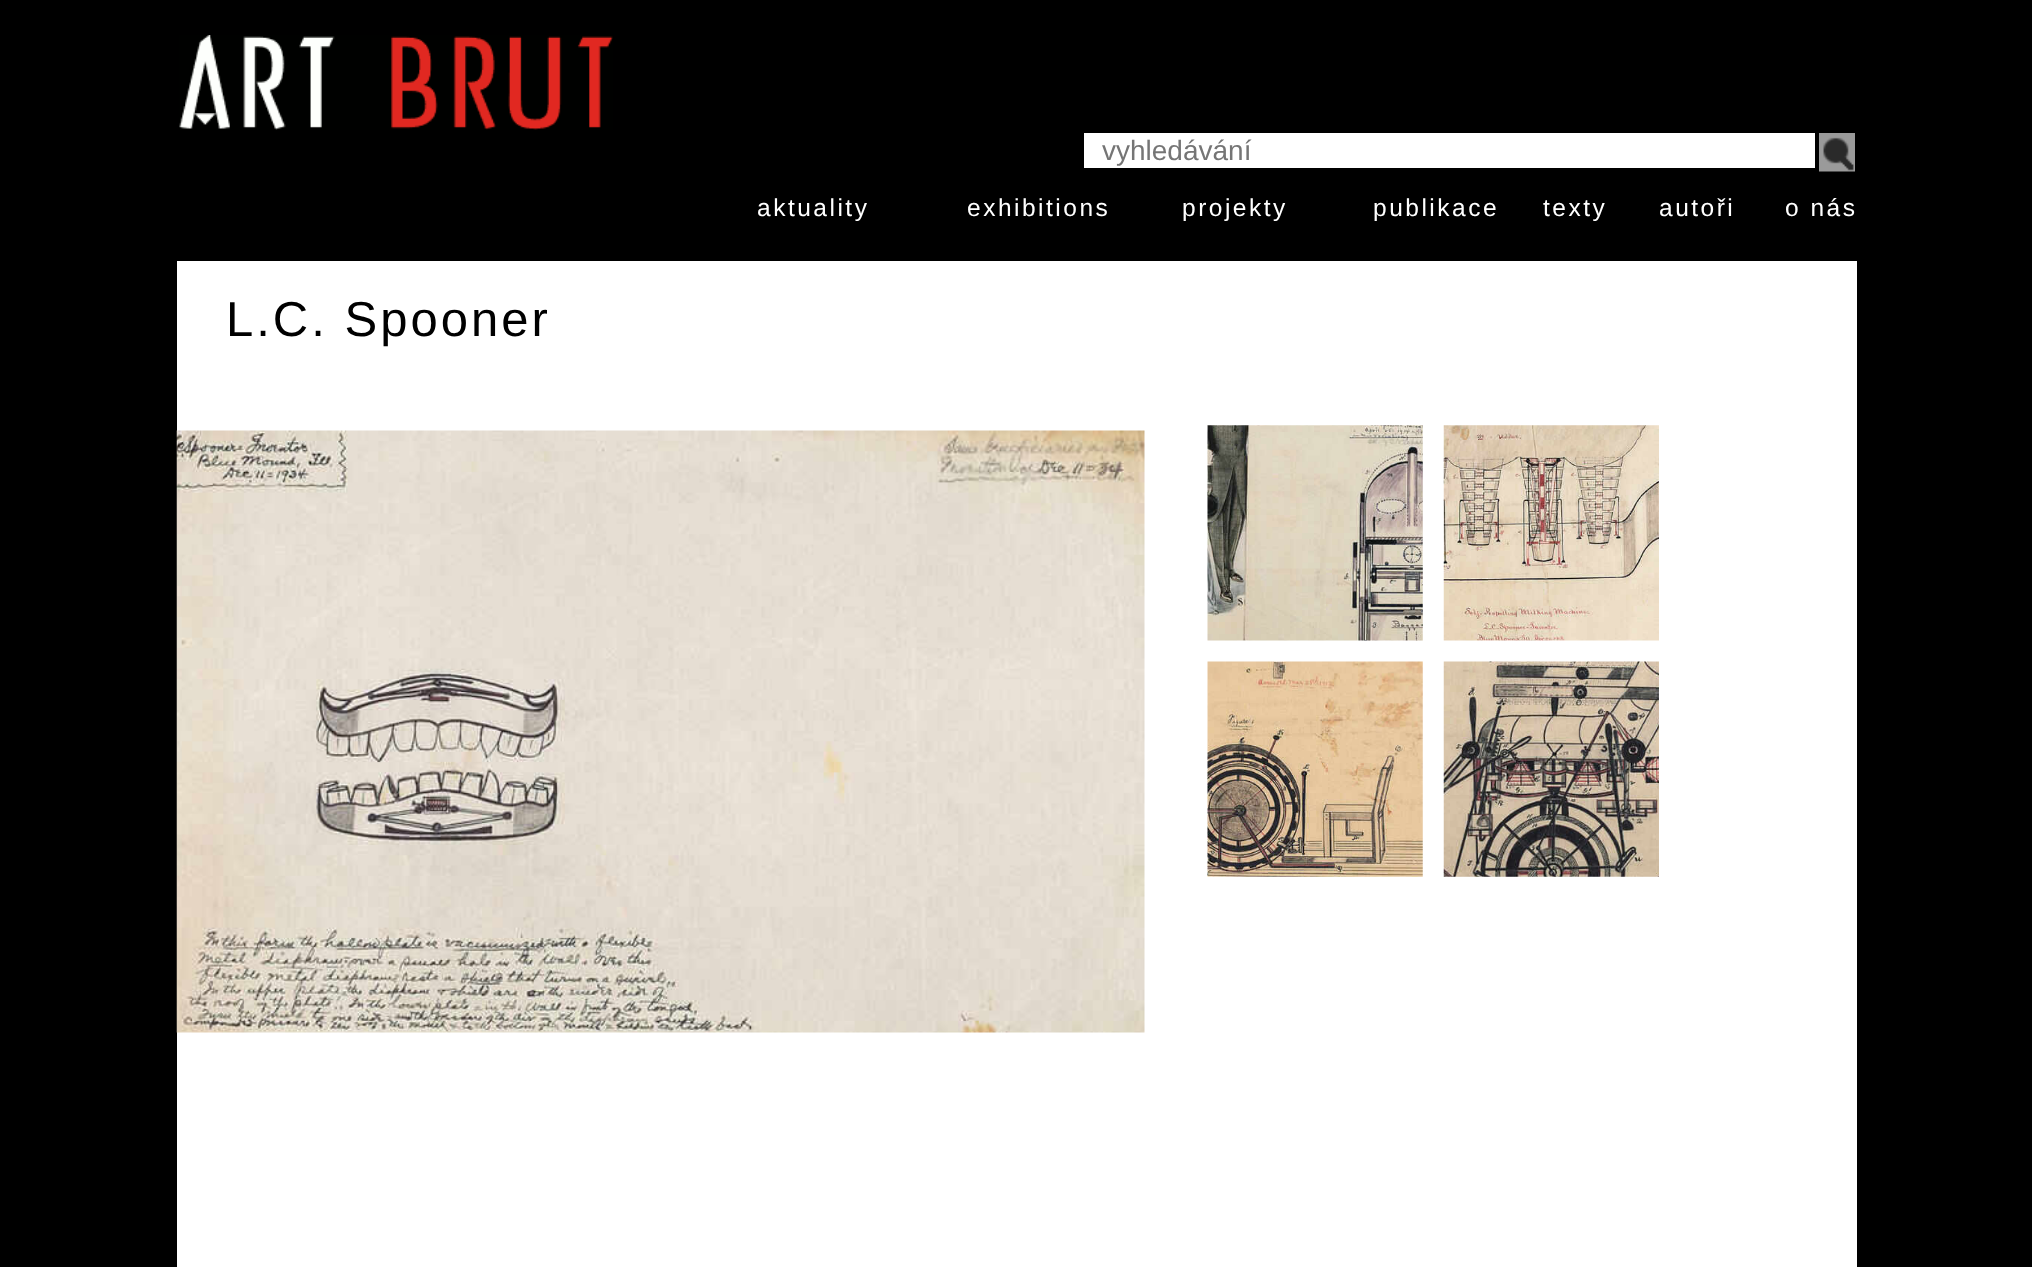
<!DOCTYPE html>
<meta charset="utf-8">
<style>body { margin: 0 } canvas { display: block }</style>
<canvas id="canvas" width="2032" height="1267"></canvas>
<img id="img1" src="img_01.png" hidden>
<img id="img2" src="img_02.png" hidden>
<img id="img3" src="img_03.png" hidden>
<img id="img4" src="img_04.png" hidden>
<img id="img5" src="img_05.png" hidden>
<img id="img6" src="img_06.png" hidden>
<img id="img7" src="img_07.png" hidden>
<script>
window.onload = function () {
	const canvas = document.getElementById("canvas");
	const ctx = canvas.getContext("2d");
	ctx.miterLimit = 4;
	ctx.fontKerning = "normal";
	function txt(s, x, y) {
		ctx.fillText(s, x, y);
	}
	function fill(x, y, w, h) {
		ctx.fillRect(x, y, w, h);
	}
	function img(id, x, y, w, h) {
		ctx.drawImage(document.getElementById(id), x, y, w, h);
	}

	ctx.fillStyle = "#000000";
	fill(0, 0, 2032, 1267);
	img("img1", 179, 35, 434, 95);
	ctx.fillStyle = "#FFFFFF";
	fill(1084, 133, 731, 35);
	img("img2", 1819, 133, 36, 39);
	fill(177, 261, 1680, 1006);
	img("img3", 176, 430, 969, 603);
	img("img4", 1207, 425, 216, 216);
	img("img5", 1443, 425, 216, 216);
	img("img6", 1207, 661, 216, 216);
	img("img7", 1443, 661, 216, 216);
	ctx.font = "28px Liberation Sans";
	ctx.fillStyle = "#757575";
	txt("vyhledávání", 1102, 160);
	ctx.letterSpacing = "2.5px";
	ctx.font = "24.5px Liberation Sans";
	ctx.fillStyle = "#FFFFFF";
	txt("aktuality", 757, 216);
	txt("exhibitions", 967, 216);
	txt("projekty", 1182, 216);
	txt("publikace", 1373, 216);
	txt("texty", 1543, 216);
	txt("autoři", 1659, 216);
	txt("o nás", 1785, 216);
	ctx.letterSpacing = "3px";
	ctx.font = "49px Liberation Sans";
	ctx.fillStyle = "#000000";
	txt("L.C. Spooner", 226, 336);
};
</script>
